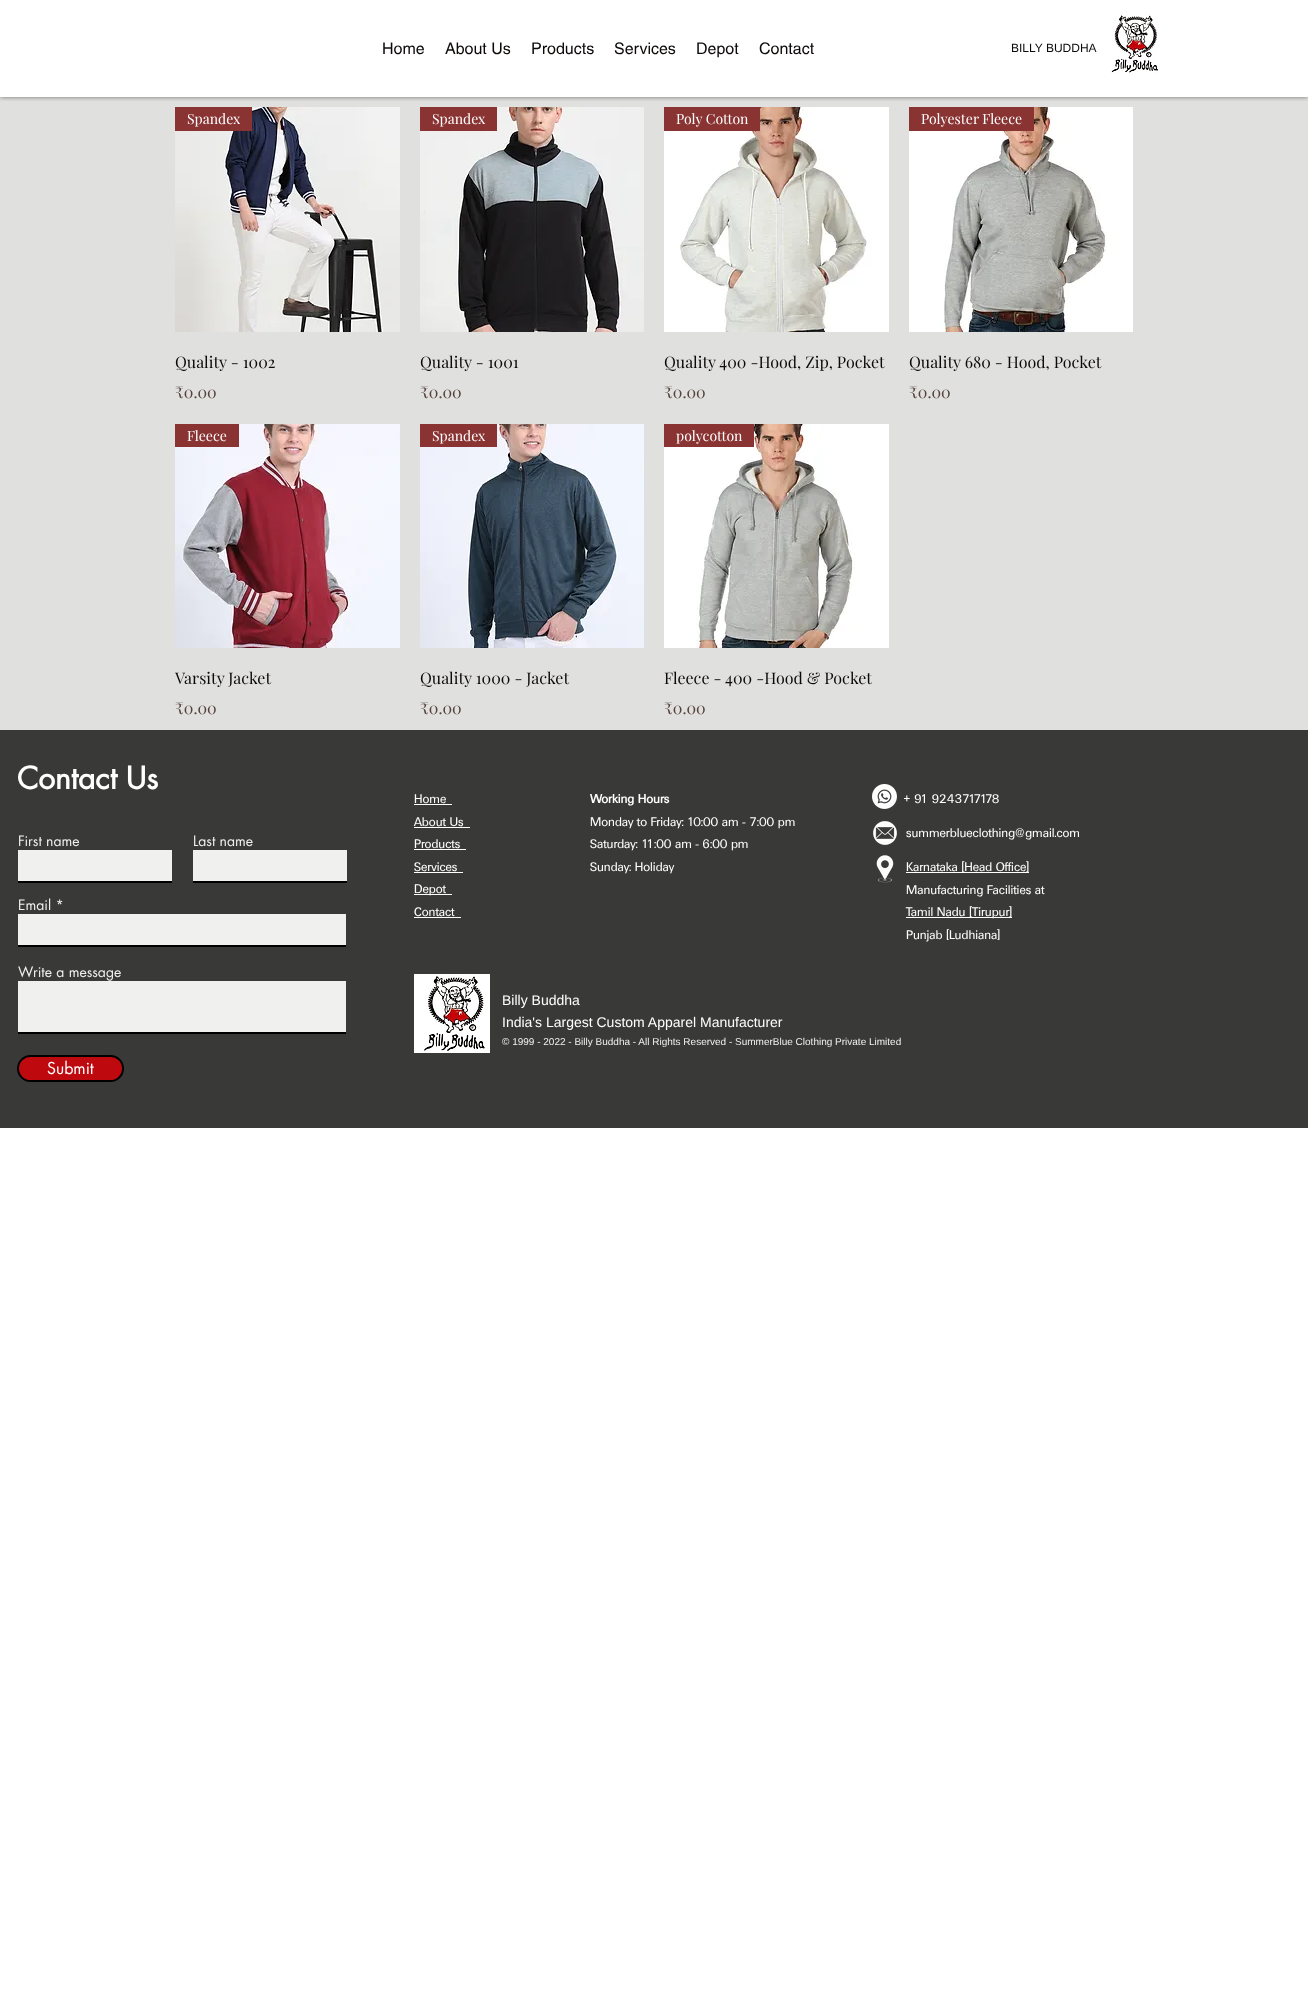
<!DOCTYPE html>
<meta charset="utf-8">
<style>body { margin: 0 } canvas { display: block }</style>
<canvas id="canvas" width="1308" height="2010"></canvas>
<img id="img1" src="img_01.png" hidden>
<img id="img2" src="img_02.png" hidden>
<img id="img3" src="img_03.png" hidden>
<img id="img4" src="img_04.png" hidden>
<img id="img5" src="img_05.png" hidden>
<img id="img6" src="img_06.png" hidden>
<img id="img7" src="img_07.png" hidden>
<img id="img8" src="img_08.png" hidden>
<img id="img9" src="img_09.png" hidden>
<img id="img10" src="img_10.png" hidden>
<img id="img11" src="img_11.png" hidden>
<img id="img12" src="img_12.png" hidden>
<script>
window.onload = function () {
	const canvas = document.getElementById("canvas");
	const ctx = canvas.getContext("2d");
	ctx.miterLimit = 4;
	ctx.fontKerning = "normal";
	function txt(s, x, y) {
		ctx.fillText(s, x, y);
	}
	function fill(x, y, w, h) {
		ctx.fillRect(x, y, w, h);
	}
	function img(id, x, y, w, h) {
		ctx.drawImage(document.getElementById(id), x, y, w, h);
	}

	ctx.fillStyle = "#FFFFFF";
	fill(0, 0, 1308, 2010);
	ctx.fillStyle = "#E0E0DF";
	fill(0, 97, 1308, 633);
	ctx.save();
	ctx.beginPath();
	ctx.rect(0, 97, 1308, 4);
	ctx.clip();
	ctx.fillStyle = "rgba(0, 0, 0, 0.5)";
	ctx.filter = "blur(2.5px)";
	ctx.beginPath();
	ctx.rect(0, 0, 1308, 97);
	ctx.fill();
	ctx.filter = "none";
	ctx.restore();
	img("img1", 1111, 15, 47, 58);
	img("img2", 175, 107, 225, 225);
	ctx.fillStyle = "#893332";
	fill(175, 107, 77, 24);
	img("img3", 420, 107, 224, 225);
	fill(420, 107, 77, 24);
	img("img4", 664, 107, 225, 225);
	fill(664, 107, 96, 24);
	img("img5", 909, 107, 224, 225);
	fill(909, 107, 125, 24);
	img("img6", 175, 424, 225, 224);
	fill(175, 424, 64, 23);
	img("img7", 420, 424, 224, 224);
	fill(420, 424, 77, 23);
	img("img8", 664, 424, 225, 224);
	fill(664, 424, 90, 23);
	ctx.fillStyle = "#393937";
	fill(0, 730, 1308, 398);
	ctx.fillStyle = "#F0F0EF";
	fill(18, 850, 154, 31);
	ctx.fillStyle = "#000000";
	fill(18, 881, 154, 2);
	ctx.fillStyle = "#F0F0EF";
	fill(193, 850, 154, 31);
	ctx.fillStyle = "#000000";
	fill(193, 881, 154, 2);
	ctx.fillStyle = "#F0F0EF";
	fill(18, 914, 328, 31);
	ctx.fillStyle = "#000000";
	fill(18, 945, 328, 2);
	ctx.fillStyle = "#F0F0EF";
	fill(18, 981, 328, 51);
	ctx.fillStyle = "#000000";
	fill(18, 1032, 328, 2);
	ctx.fillStyle = "#BE0A0E";
	ctx.beginPath();
	ctx.roundRect(18, 1056, 105, 25, 12.5);
	ctx.fill();
	ctx.strokeStyle = "#000000";
	ctx.lineWidth = 2;
	ctx.stroke();
	ctx.fillStyle = "#FFFFFF";
	fill(414, 804, 38, 1);
	fill(414, 827, 56, 1);
	fill(414, 849, 52, 1);
	fill(414, 872, 49, 1);
	fill(414, 894, 38, 1);
	fill(414, 917, 47, 1);
	img("img9", 872, 784, 25, 25);
	img("img10", 873, 821, 24, 24);
	img("img11", 876, 855, 18, 28);
	fill(906, 872, 123, 1);
	fill(906, 917, 106, 1);
	img("img12", 414, 974, 76, 79);
	ctx.font = "16px helvetica";
	ctx.fillStyle = "#0D0A09";
	txt("Home", 382, 54);
	txt("About Us", 445, 54);
	txt("Products", 531, 54);
	txt("Services", 614, 54);
	txt("Depot", 696, 54);
	txt("Contact", 759, 54);
	ctx.font = "12px Liberation Sans";
	txt("BILLY BUDDHA", 1011, 52);
	ctx.font = "14px Playfair Display";
	ctx.fillStyle = "#FFFFFF";
	txt("Spandex", 187, 124);
	ctx.font = "16px Playfair Display";
	ctx.fillStyle = "#0D0A09";
	txt("Quality - 1002", 175, 368);
	ctx.fillStyle = "#55413B";
	txt("₹0.00", 175, 398);
	ctx.font = "14px Playfair Display";
	ctx.fillStyle = "#FFFFFF";
	txt("Spandex", 432, 124);
	ctx.font = "16px Playfair Display";
	ctx.fillStyle = "#0D0A09";
	txt("Quality - 1001", 420, 368);
	ctx.fillStyle = "#55413B";
	txt("₹0.00", 420, 398);
	ctx.font = "14px Playfair Display";
	ctx.fillStyle = "#FFFFFF";
	txt("Poly Cotton", 676, 124);
	ctx.font = "16px Playfair Display";
	ctx.fillStyle = "#0D0A09";
	txt("Quality 400 -Hood, Zip, Pocket", 664, 368);
	ctx.fillStyle = "#55413B";
	txt("₹0.00", 664, 398);
	ctx.font = "14px Playfair Display";
	ctx.fillStyle = "#FFFFFF";
	txt("Polyester Fleece", 921, 124);
	ctx.font = "16px Playfair Display";
	ctx.fillStyle = "#0D0A09";
	txt("Quality 680 - Hood, Pocket", 909, 368);
	ctx.fillStyle = "#55413B";
	txt("₹0.00", 909, 398);
	ctx.font = "14px Playfair Display";
	ctx.fillStyle = "#FFFFFF";
	txt("Fleece", 187, 441);
	ctx.font = "16px Playfair Display";
	ctx.fillStyle = "#0D0A09";
	txt("Varsity Jacket", 175, 684);
	ctx.fillStyle = "#55413B";
	txt("₹0.00", 175, 714);
	ctx.font = "14px Playfair Display";
	ctx.fillStyle = "#FFFFFF";
	txt("Spandex", 432, 441);
	ctx.font = "16px Playfair Display";
	ctx.fillStyle = "#0D0A09";
	txt("Quality 1000 - Jacket", 420, 684);
	ctx.fillStyle = "#55413B";
	txt("₹0.00", 420, 714);
	ctx.font = "14px Playfair Display";
	ctx.fillStyle = "#FFFFFF";
	txt("polycotton", 676, 441);
	ctx.font = "16px Playfair Display";
	ctx.fillStyle = "#0D0A09";
	txt("Fleece - 400 -Hood & Pocket", 664, 684);
	ctx.fillStyle = "#55413B";
	txt("₹0.00", 664, 714);
	ctx.font = "bold 30px futura";
	ctx.fillStyle = "#FFFFFF";
	txt("Contact Us", 17, 789);
	ctx.font = "14px futura";
	ctx.fillStyle = "#F0F0EF";
	txt("First name", 18, 846);
	txt("Last name", 193, 846);
	txt("Email *", 18, 910);
	txt("Write a message", 18, 977);
	ctx.font = "16px futura";
	ctx.fillStyle = "#FFFFFF";
	txt("Submit", 47, 1074);
	ctx.font = "12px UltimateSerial";
	txt("Home", 414, 803);
	txt("About Us", 414, 826);
	txt("Products", 414, 848);
	txt("Services", 414, 871);
	txt("Depot", 414, 893);
	txt("Contact", 414, 916);
	ctx.font = "bold 12px UltimateSerial";
	txt("Working Hours", 590, 803);
	ctx.font = "12px UltimateSerial";
	txt("Monday to Friday: 10:00 am - 7:00 pm", 590, 826);
	txt("Saturday: 11:00 am - 6:00 pm", 590, 848);
	txt("Sunday: Holiday", 590, 871);
	txt("+ 91 9243717178", 903, 803);
	txt("summerblueclothing@gmail.com", 906, 837);
	txt("Karnataka [Head Office]", 906, 871);
	txt("Manufacturing Facilities at", 906, 894);
	txt("Tamil Nadu [Tirupur]", 906, 916);
	txt("Punjab [Ludhiana]", 906, 939);
	ctx.font = "14px Liberation Sans";
	txt("Billy Buddha", 502, 1005);
	txt("India's Largest Custom Apparel Manufacturer", 502, 1027);
	ctx.font = "10px Liberation Sans";
	ctx.fillStyle = "#F0F0EF";
	txt("© 1999 - 2022 - Billy Buddha - All Rights Reserved - SummerBlue Clothing Private Limited", 502, 1045);
};
</script>
